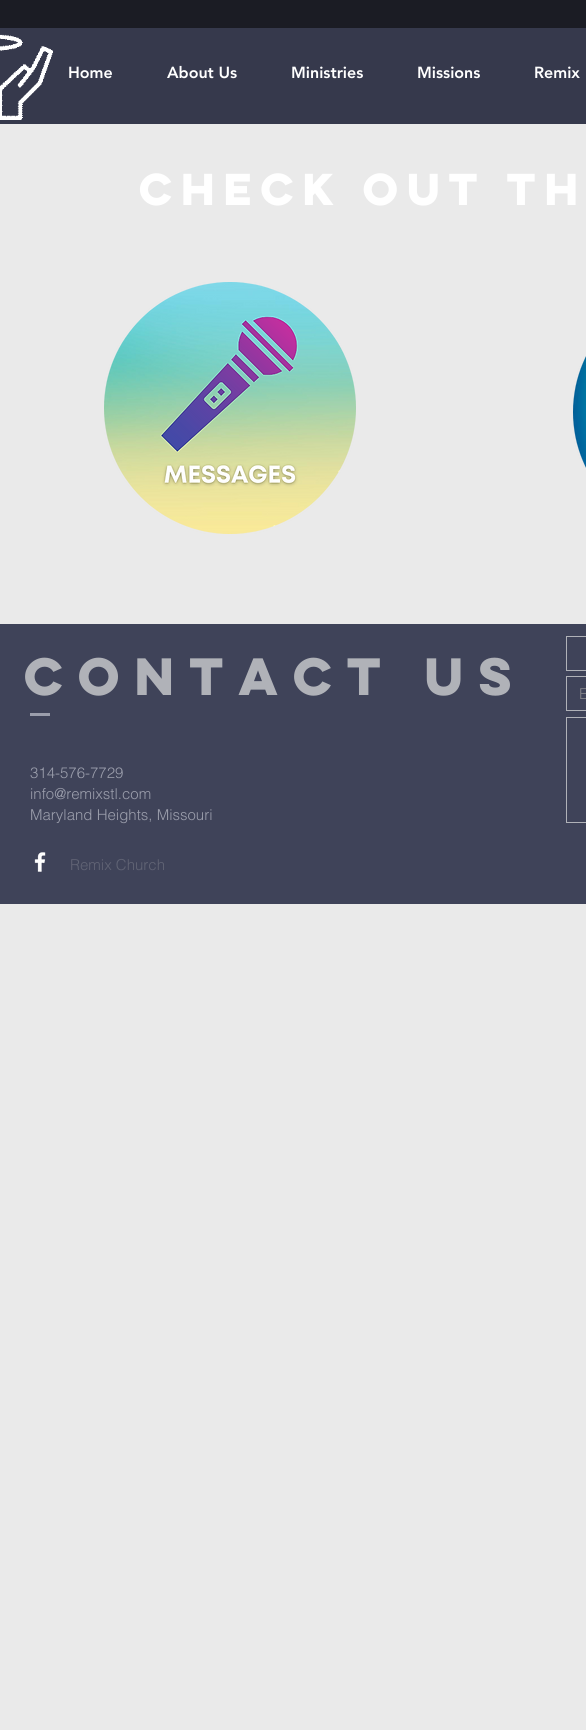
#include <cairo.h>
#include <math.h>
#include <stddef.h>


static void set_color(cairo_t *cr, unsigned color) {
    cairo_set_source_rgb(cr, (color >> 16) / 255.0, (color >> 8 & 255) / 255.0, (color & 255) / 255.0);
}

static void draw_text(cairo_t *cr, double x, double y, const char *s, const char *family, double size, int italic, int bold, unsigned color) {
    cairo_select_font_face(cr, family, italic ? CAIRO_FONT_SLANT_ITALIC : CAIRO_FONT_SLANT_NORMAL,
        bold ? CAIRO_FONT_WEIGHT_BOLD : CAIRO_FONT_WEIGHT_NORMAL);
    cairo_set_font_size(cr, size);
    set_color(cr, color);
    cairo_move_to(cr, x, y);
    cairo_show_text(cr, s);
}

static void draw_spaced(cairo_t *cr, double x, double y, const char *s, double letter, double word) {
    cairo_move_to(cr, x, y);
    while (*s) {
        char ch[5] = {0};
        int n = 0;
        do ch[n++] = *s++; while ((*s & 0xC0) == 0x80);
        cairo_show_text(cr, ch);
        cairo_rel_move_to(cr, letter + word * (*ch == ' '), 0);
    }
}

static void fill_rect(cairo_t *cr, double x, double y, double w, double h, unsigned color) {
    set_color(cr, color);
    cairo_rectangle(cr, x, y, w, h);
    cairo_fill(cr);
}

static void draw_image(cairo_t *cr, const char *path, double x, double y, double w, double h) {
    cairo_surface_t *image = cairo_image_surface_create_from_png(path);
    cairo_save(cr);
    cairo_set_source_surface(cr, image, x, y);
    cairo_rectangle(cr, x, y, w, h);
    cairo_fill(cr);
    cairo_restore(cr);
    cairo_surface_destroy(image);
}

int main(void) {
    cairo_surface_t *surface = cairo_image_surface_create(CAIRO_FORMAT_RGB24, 586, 1730);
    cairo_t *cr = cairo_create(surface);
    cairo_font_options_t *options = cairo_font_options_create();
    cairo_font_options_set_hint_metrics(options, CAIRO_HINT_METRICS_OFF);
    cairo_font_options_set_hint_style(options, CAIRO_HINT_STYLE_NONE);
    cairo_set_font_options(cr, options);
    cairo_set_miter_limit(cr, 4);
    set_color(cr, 0xEAEAEA);
    cairo_paint(cr);
    fill_rect(cr, 0, 0, 586, 28, 0x1B1C24);
    fill_rect(cr, 0, 28, 586, 96, 0x36394C);
    draw_image(cr, "assets/img1.png", 0, 34, 53, 86);
    draw_text(cr, 68, 78, "Home", "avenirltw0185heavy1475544 Black", 16, 0, 0, 0xFFFFFF);
    draw_text(cr, 167, 78, "About Us", "avenirltw0185heavy1475544 Black", 16, 0, 0, 0xFFFFFF);
    draw_text(cr, 291, 78, "Ministries", "avenirltw0185heavy1475544 Black", 16, 0, 0, 0xFFFFFF);
    draw_text(cr, 417, 78, "Missions", "avenirltw0185heavy1475544 Black", 16, 0, 0, 0xFFFFFF);
    draw_text(cr, 534, 78, "Remix", "avenirltw0185heavy1475544 Black", 16, 0, 0, 0xFFFFFF);
    draw_text(cr, 139, 205, "Check out th", "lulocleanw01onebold", 40, 0, 1, 0xFFFFFF);
    draw_image(cr, "assets/img2.png", 104, 282, 252, 252);
    draw_image(cr, "assets/img3.png", 573, 356, 13, 112);
    fill_rect(cr, 0, 624, 586, 280, 0x3F4359);
    cairo_set_font_size(cr, 47);
    set_color(cr, 0xB0B2B8);
    draw_spaced(cr, 24, 695, "Contact us", 4.75, 0);
    cairo_rectangle(cr, 566.5, 636.5, 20, 34);
    cairo_set_line_width(cr, 1);
    cairo_stroke(cr);
    cairo_rectangle(cr, 566.5, 676.5, 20, 34);
    cairo_stroke(cr);
    draw_text(cr, 579, 699, "E", "helvetica Light", 15, 0, 0, 0x84858A);
    cairo_rectangle(cr, 566.5, 717.5, 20, 105);
    set_color(cr, 0xB0B2B8);
    cairo_stroke(cr);
    fill_rect(cr, 30, 713, 20, 3, 0x9B9EAC);
    draw_text(cr, 30, 778, "314-576-7729", "helvetica Light", 15, 0, 0, 0x9B9EAC);
    draw_text(cr, 30, 799, "info@remixstl.com", "helvetica Light", 15, 0, 0, 0x9B9EAC);
    draw_text(cr, 30, 820, "Maryland Heights, Missouri", "helvetica Light", 15, 0, 0, 0x9B9EAC);
    draw_image(cr, "assets/img4.png", 34, 852, 12, 20);
    draw_text(cr, 70, 870, "Remix Church", "helvetica Light", 15, 0, 0, 0x616475);
    cairo_surface_write_to_png(surface, "output.png");
    cairo_font_options_destroy(options);
    cairo_destroy(cr);
    cairo_surface_destroy(surface);
    return 0;
}
